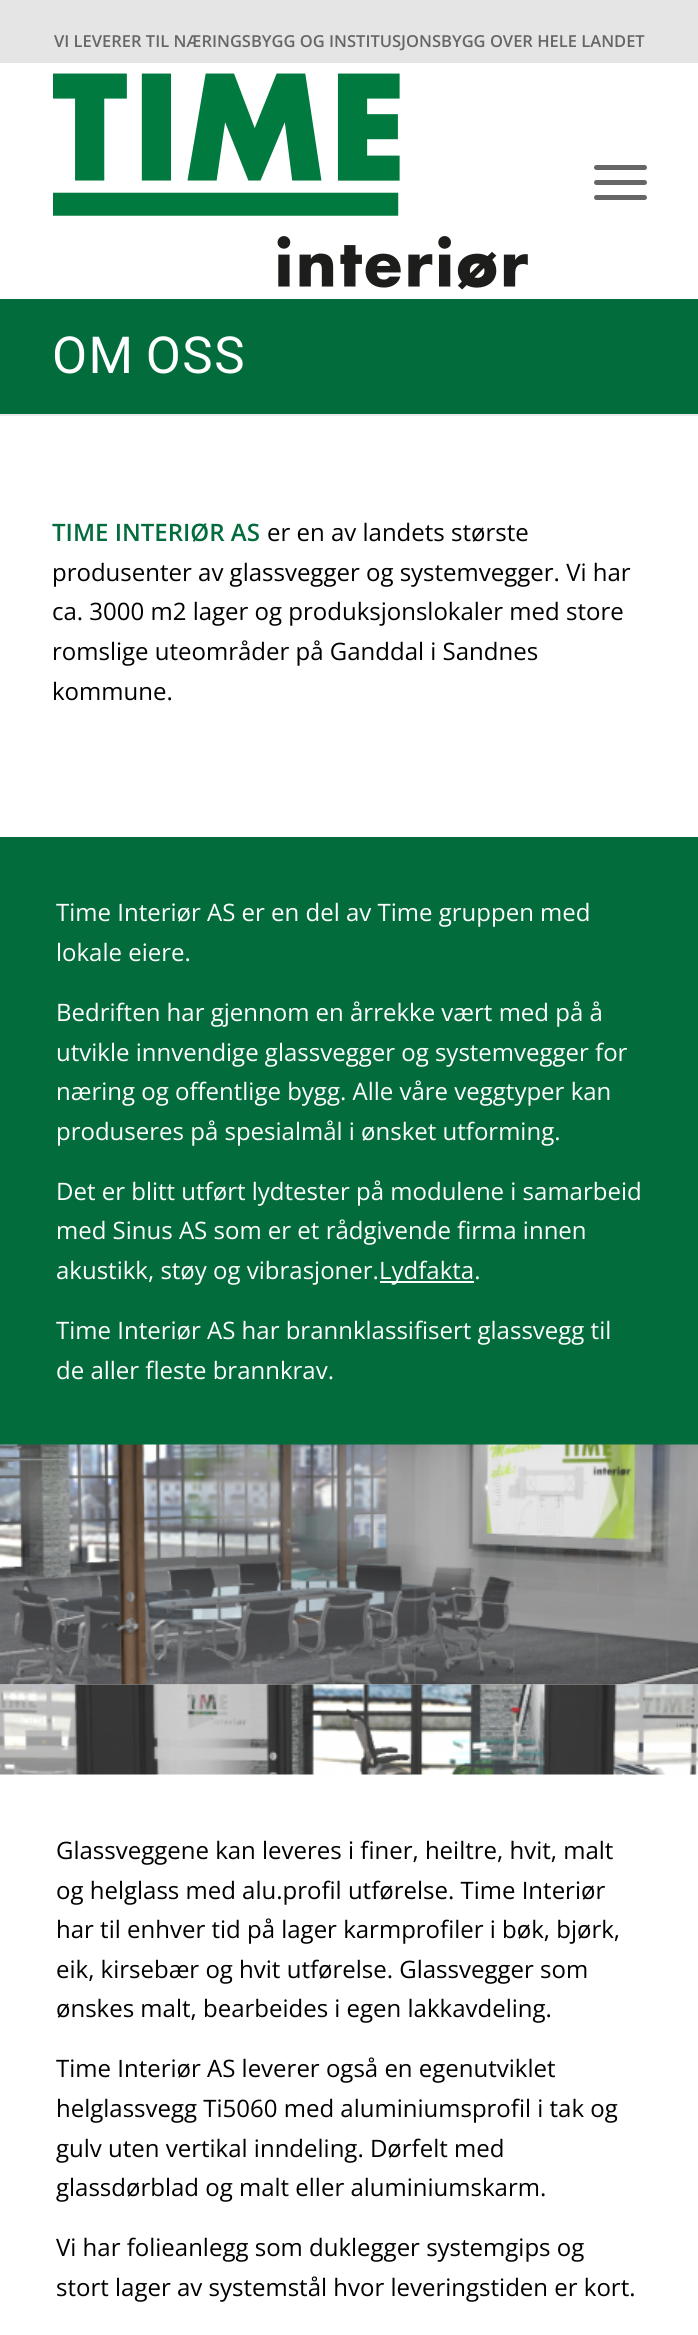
#include <cairo.h>
#include <math.h>
#include <stddef.h>


static void set_color(cairo_t *cr, unsigned color) {
    cairo_set_source_rgb(cr, (color >> 16) / 255.0, (color >> 8 & 255) / 255.0, (color & 255) / 255.0);
}

static void draw_text(cairo_t *cr, double x, double y, const char *s, const char *family, double size, int italic, int bold, unsigned color) {
    cairo_select_font_face(cr, family, italic ? CAIRO_FONT_SLANT_ITALIC : CAIRO_FONT_SLANT_NORMAL,
        bold ? CAIRO_FONT_WEIGHT_BOLD : CAIRO_FONT_WEIGHT_NORMAL);
    cairo_set_font_size(cr, size);
    set_color(cr, color);
    cairo_move_to(cr, x, y);
    cairo_show_text(cr, s);
}

static void draw_spaced(cairo_t *cr, double x, double y, const char *s, double letter, double word) {
    cairo_move_to(cr, x, y);
    while (*s) {
        char ch[5] = {0};
        int n = 0;
        do ch[n++] = *s++; while ((*s & 0xC0) == 0x80);
        cairo_show_text(cr, ch);
        cairo_rel_move_to(cr, letter + word * (*ch == ' '), 0);
    }
}

static void fill_rect(cairo_t *cr, double x, double y, double w, double h, unsigned color) {
    set_color(cr, color);
    cairo_rectangle(cr, x, y, w, h);
    cairo_fill(cr);
}

static void rounded_rect(cairo_t *cr, double x, double y, double w, double h, double r) {
    cairo_new_sub_path(cr);
    cairo_arc(cr, x + w - r, y + h - r, r, 0, M_PI / 2);
    cairo_arc(cr, x + r, y + h - r, r, M_PI / 2, M_PI);
    cairo_arc(cr, x + r, y + r, r, M_PI, 1.5 * M_PI);
    cairo_arc(cr, x + w - r, y + r, r, 1.5 * M_PI, 2 * M_PI);
    cairo_close_path(cr);
}

static void draw_image(cairo_t *cr, const char *path, double x, double y, double w, double h) {
    cairo_surface_t *image = cairo_image_surface_create_from_png(path);
    cairo_save(cr);
    cairo_set_source_surface(cr, image, x, y);
    cairo_rectangle(cr, x, y, w, h);
    cairo_fill(cr);
    cairo_restore(cr);
    cairo_surface_destroy(image);
}

int main(void) {
    cairo_surface_t *surface = cairo_image_surface_create(CAIRO_FORMAT_RGB24, 698, 2335);
    cairo_t *cr = cairo_create(surface);
    cairo_font_options_t *options = cairo_font_options_create();
    cairo_font_options_set_hint_metrics(options, CAIRO_HINT_METRICS_OFF);
    cairo_font_options_set_hint_style(options, CAIRO_HINT_STYLE_NONE);
    cairo_set_font_options(cr, options);
    cairo_set_miter_limit(cr, 4);
    set_color(cr, 0xFFFFFF);
    cairo_paint(cr);
    fill_rect(cr, 0, 0, 698, 63, 0xE5E5E5);
    draw_text(cr, 54, 47, "VI LEVERER TIL NÆRINGSBYGG OG INSTITUSJONSBYGG OVER HELE LANDET", "Open Sans SemiBold", 16.5, 0, 0, 0x666666);
    draw_image(cr, "assets/img1.png", 53, 73, 475, 217);
    rounded_rect(cr, 594, 180, 53, 5, 2.5);
    cairo_fill(cr);
    rounded_rect(cr, 594, 165, 53, 5, 2.5);
    cairo_fill(cr);
    rounded_rect(cr, 594, 195, 53, 5, 2.5);
    cairo_fill(cr);
    fill_rect(cr, 0, 299, 698, 115, 0x026C3D);
    cairo_select_font_face(cr, "Roboto", CAIRO_FONT_SLANT_NORMAL, CAIRO_FONT_WEIGHT_NORMAL);
    cairo_set_font_size(cr, 51);
    set_color(cr, 0xFFFFFF);
    draw_spaced(cr, 52, 373, "OM OSS", 1.5, -3);
    fill_rect(cr, 0, 414, 698, 2, 0xEBEBEB);
    draw_text(cr, 52, 541, "TIME INTERIØR AS", "Open Sans SemiBold", 24, 0, 0, 0x026C3C);
    draw_text(cr, 267, 541, "er en av landets største", "Open Sans", 24, 0, 0, 0x000000);
    draw_text(cr, 52, 581, "produsenter av glassvegger og systemvegger. Vi har", "Open Sans", 24, 0, 0, 0x000000);
    draw_text(cr, 52, 620, "ca. 3000 m2 lager og produksjonslokaler med store", "Open Sans", 24, 0, 0, 0x000000);
    draw_text(cr, 52, 660, "romslige uteområder på Ganddal i Sandnes", "Open Sans", 24, 0, 0, 0x000000);
    draw_text(cr, 52, 700, "kommune.", "Open Sans", 24, 0, 0, 0x000000);
    fill_rect(cr, 0, 837, 698, 608, 0x026C3C);
    draw_text(cr, 56, 921, "Time Interiør AS er en del av Time gruppen med", "Open Sans", 24, 0, 0, 0xFFFFFF);
    draw_text(cr, 56, 961, "lokale eiere.", "Open Sans", 24, 0, 0, 0xFFFFFF);
    draw_text(cr, 56, 1021, "Bedriften har gjennom en årrekke vært med på å", "Open Sans", 24, 0, 0, 0xFFFFFF);
    draw_text(cr, 56, 1061, "utvikle innvendige glassvegger og systemvegger for", "Open Sans", 24, 0, 0, 0xFFFFFF);
    draw_text(cr, 56, 1100, "næring og offentlige bygg. Alle våre veggtyper kan", "Open Sans", 24, 0, 0, 0xFFFFFF);
    draw_text(cr, 56, 1140, "produseres på spesialmål i ønsket utforming.", "Open Sans", 24, 0, 0, 0xFFFFFF);
    draw_text(cr, 56, 1200, "Det er blitt utført lydtester på modulene i samarbeid", "Open Sans", 24, 0, 0, 0xFFFFFF);
    draw_text(cr, 56, 1239, "med Sinus AS som er et rådgivende firma innen", "Open Sans", 24, 0, 0, 0xFFFFFF);
    draw_text(cr, 56, 1279, "akustikk, støy og vibrasjoner.", "Open Sans", 24, 0, 0, 0xFFFFFF);
    fill_rect(cr, 380, 1281, 94, 2, 0xFFFFFF);
    draw_text(cr, 379, 1279, "Lydfakta.", "Open Sans", 24, 0, 0, 0xFFFFFF);
    draw_text(cr, 56, 1339, "Time Interiør AS har brannklassifisert glassvegg til", "Open Sans", 24, 0, 0, 0xFFFFFF);
    draw_text(cr, 56, 1379, "de aller fleste brannkrav.", "Open Sans", 24, 0, 0, 0xFFFFFF);
    draw_image(cr, "assets/img2.png", 0, 1444, 698, 241);
    draw_image(cr, "assets/img3.png", 0, 1684, 698, 91);
    draw_text(cr, 56, 1859, "Glassveggene kan leveres i finer, heiltre, hvit, malt", "Open Sans", 24, 0, 0, 0x000000);
    draw_text(cr, 56, 1899, "og helglass med alu.profil utførelse. Time Interiør", "Open Sans", 24, 0, 0, 0x000000);
    draw_text(cr, 56, 1938, "har til enhver tid på lager karmprofiler i bøk, bjørk,", "Open Sans", 24, 0, 0, 0x000000);
    draw_text(cr, 56, 1978, "eik, kirsebær og hvit utførelse. Glassvegger som", "Open Sans", 24, 0, 0, 0x000000);
    draw_text(cr, 56, 2017, "ønskes malt, bearbeides i egen lakkavdeling.", "Open Sans", 24, 0, 0, 0x000000);
    draw_text(cr, 56, 2077, "Time Interiør AS leverer også en egenutviklet", "Open Sans", 24, 0, 0, 0x000000);
    draw_text(cr, 56, 2117, "helglassvegg Ti5060 med aluminiumsprofil i tak og", "Open Sans", 24, 0, 0, 0x000000);
    draw_text(cr, 56, 2157, "gulv uten vertikal inndeling. Dørfelt med", "Open Sans", 24, 0, 0, 0x000000);
    draw_text(cr, 56, 2196, "glassdørblad og malt eller aluminiumskarm.", "Open Sans", 24, 0, 0, 0x000000);
    draw_text(cr, 56, 2256, "Vi har folieanlegg som duklegger systemgips og", "Open Sans", 24, 0, 0, 0x000000);
    draw_text(cr, 56, 2296, "stort lager av systemstål hvor leveringstiden er kort.", "Open Sans", 24, 0, 0, 0x000000);
    cairo_surface_write_to_png(surface, "output.png");
    cairo_font_options_destroy(options);
    cairo_destroy(cr);
    cairo_surface_destroy(surface);
    return 0;
}
